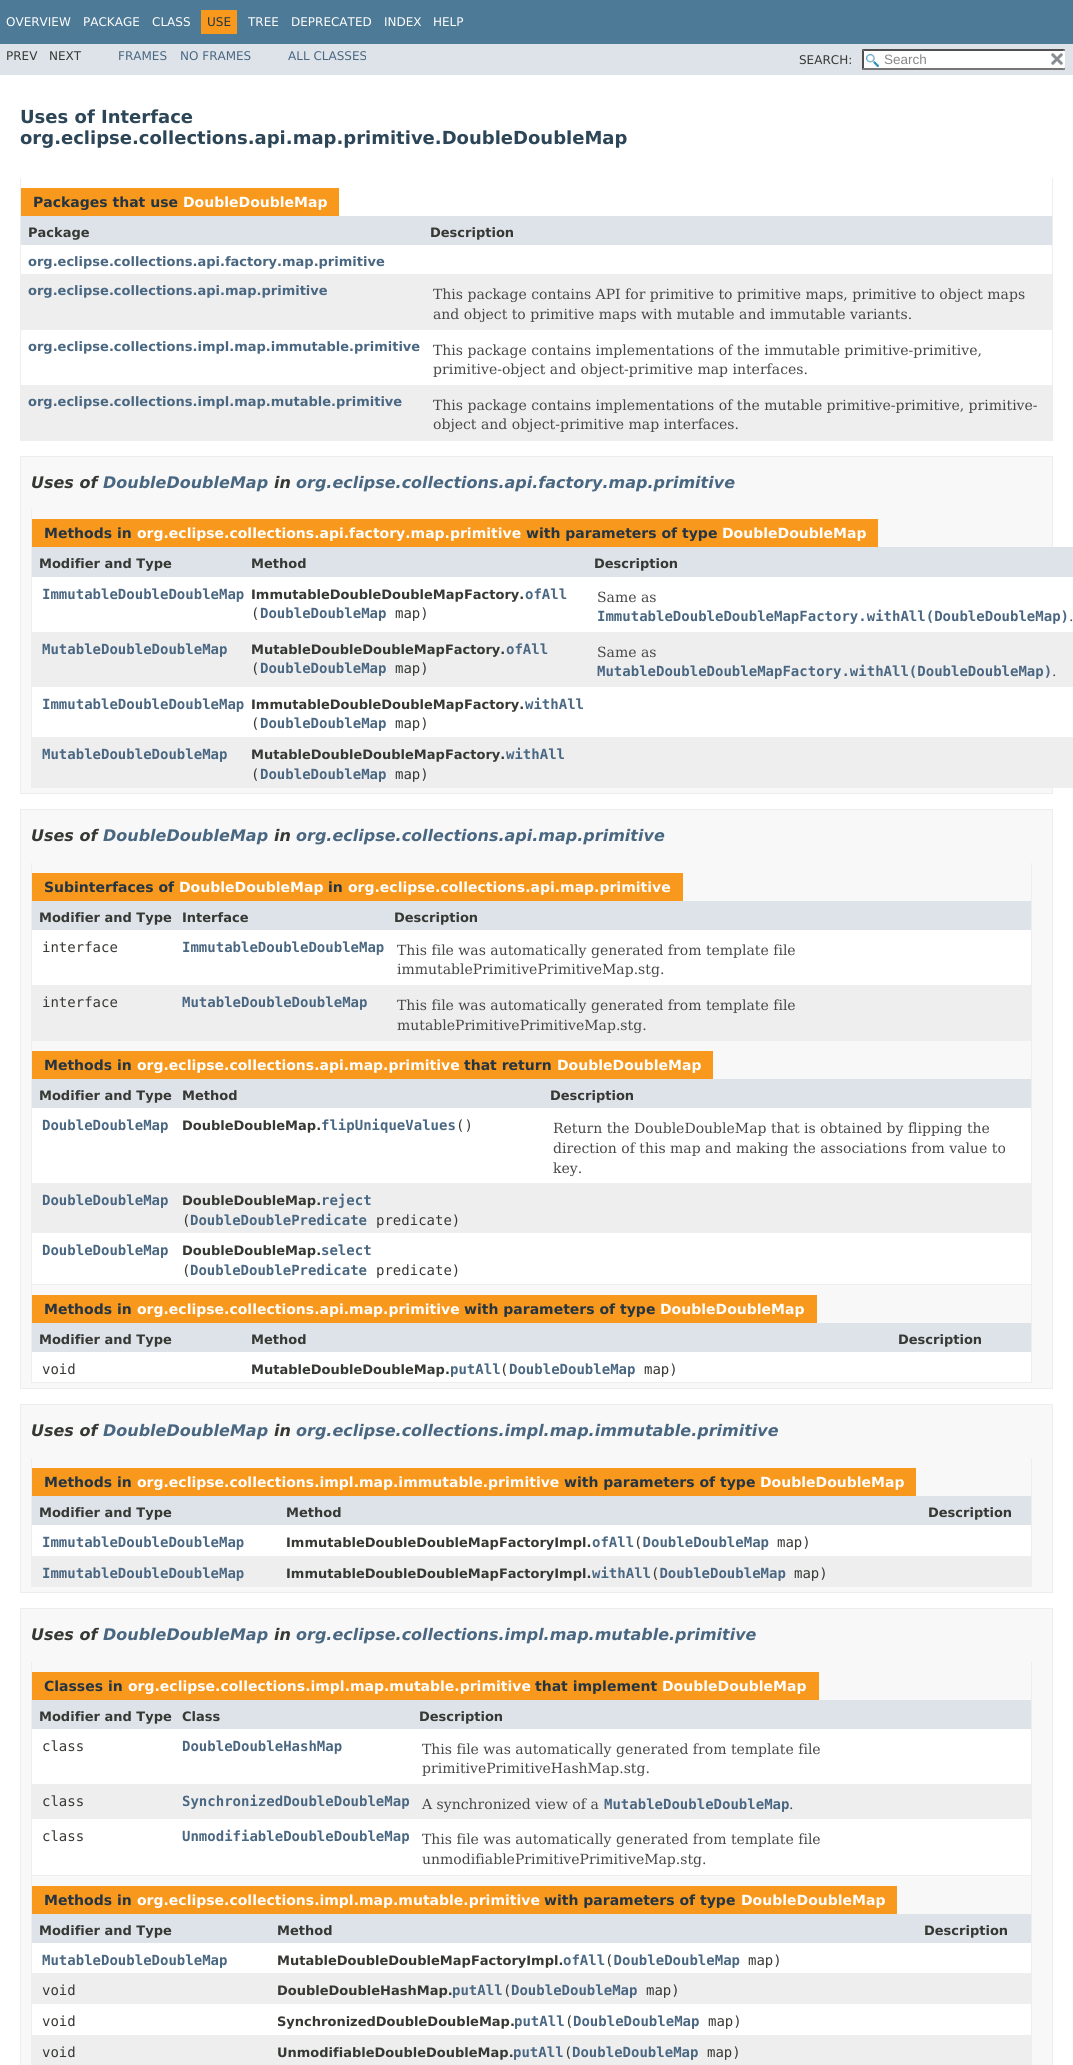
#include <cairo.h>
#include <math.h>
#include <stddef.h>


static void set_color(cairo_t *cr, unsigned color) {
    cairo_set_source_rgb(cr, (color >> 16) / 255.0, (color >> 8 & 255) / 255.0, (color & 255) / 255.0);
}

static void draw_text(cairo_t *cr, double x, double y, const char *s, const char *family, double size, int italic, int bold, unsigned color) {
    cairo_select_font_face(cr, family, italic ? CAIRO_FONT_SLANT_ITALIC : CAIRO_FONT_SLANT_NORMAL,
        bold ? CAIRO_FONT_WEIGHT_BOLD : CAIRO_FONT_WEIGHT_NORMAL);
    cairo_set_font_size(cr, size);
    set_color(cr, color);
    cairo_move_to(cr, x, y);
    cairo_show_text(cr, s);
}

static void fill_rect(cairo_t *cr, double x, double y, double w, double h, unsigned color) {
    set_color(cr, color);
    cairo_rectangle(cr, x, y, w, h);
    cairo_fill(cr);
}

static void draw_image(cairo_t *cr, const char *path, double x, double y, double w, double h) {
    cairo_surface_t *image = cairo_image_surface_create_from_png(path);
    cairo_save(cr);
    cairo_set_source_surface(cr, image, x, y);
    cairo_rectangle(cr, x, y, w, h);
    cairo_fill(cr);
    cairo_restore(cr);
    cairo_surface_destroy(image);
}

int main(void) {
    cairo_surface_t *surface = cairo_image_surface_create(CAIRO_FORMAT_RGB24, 1073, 2065);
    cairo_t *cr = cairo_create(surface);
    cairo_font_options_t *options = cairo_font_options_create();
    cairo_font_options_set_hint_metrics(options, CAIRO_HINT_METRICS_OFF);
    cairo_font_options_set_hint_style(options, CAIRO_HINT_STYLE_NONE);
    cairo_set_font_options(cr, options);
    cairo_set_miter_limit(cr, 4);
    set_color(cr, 0xFFFFFF);
    cairo_paint(cr);
    fill_rect(cr, 0, 0, 1073, 44, 0x4D7A97);
    draw_text(cr, 6, 26, "OVERVIEW", "DejaVu Sans", 12, 0, 0, 0xFFFFFF);
    draw_text(cr, 83, 26, "PACKAGE", "DejaVu Sans", 12, 0, 0, 0xFFFFFF);
    draw_text(cr, 152, 26, "CLASS", "DejaVu Sans", 12, 0, 0, 0xFFFFFF);
    fill_rect(cr, 201, 10, 36, 24, 0xF8981D);
    draw_text(cr, 207, 26, "USE", "DejaVu Sans", 12, 0, 0, 0x253441);
    draw_text(cr, 248, 26, "TREE", "DejaVu Sans", 12, 0, 0, 0xFFFFFF);
    draw_text(cr, 291, 26, "DEPRECATED", "DejaVu Sans", 12, 0, 0, 0xFFFFFF);
    draw_text(cr, 384, 26, "INDEX", "DejaVu Sans", 12, 0, 0, 0xFFFFFF);
    draw_text(cr, 433, 26, "HELP", "DejaVu Sans", 12, 0, 0, 0xFFFFFF);
    fill_rect(cr, 0, 44, 1073, 31, 0xDEE3E9);
    draw_text(cr, 6, 60, "PREV", "DejaVu Sans", 12, 0, 0, 0x353833);
    draw_text(cr, 49, 60, "NEXT", "DejaVu Sans", 12, 0, 0, 0x353833);
    draw_text(cr, 118, 60, "FRAMES", "DejaVu Sans", 12, 0, 0, 0x4A6782);
    draw_text(cr, 180, 60, "NO FRAMES", "DejaVu Sans", 12, 0, 0, 0x4A6782);
    draw_text(cr, 288, 60, "ALL CLASSES", "DejaVu Sans", 12, 0, 0, 0x4A6782);
    draw_text(cr, 799, 64, "SEARCH:", "DejaVu Sans", 12, 0, 0, 0x353833);
    fill_rect(cr, 862, 49, 203, 21, 0xFFFFFF);
    draw_image(cr, "assets/img1.png", 866, 54, 13, 13);
    set_color(cr, 0x4F4F4F);
    cairo_new_path(cr);
    cairo_move_to(cr, 862, 49);
    cairo_line_to(cr, 1065, 49);
    cairo_line_to(cr, 1063, 51);
    cairo_line_to(cr, 864, 51);
    cairo_close_path(cr);
    cairo_fill(cr);
    set_color(cr, 0x767676);
    cairo_new_path(cr);
    cairo_move_to(cr, 1065, 49);
    cairo_line_to(cr, 1065, 70);
    cairo_line_to(cr, 1063, 68);
    cairo_line_to(cr, 1063, 51);
    cairo_close_path(cr);
    cairo_fill(cr);
    cairo_new_path(cr);
    cairo_move_to(cr, 1065, 70);
    cairo_line_to(cr, 862, 70);
    cairo_line_to(cr, 864, 68);
    cairo_line_to(cr, 1063, 68);
    cairo_close_path(cr);
    cairo_fill(cr);
    set_color(cr, 0x4F4F4F);
    cairo_new_path(cr);
    cairo_move_to(cr, 862, 70);
    cairo_line_to(cr, 862, 49);
    cairo_line_to(cr, 864, 51);
    cairo_line_to(cr, 864, 68);
    cairo_close_path(cr);
    cairo_fill(cr);
    draw_text(cr, 884, 64, "Search", "Liberation Sans", 13.5, 0, 0, 0x888888);
    fill_rect(cr, 1063, 51, 2, 17, 0xFFFFFF);
    draw_image(cr, "assets/img2.png", 1051, 53, 12, 12);
    draw_text(cr, 20, 123, "Uses of Interface", "DejaVu Sans", 18, 0, 1, 0x2C4557);
    draw_text(cr, 20, 144, "org.eclipse.collections.api.map.primitive.DoubleDoubleMap", "DejaVu Sans", 18, 0, 1, 0x2C4557);
    fill_rect(cr, 1052, 178, 1, 263, 0xEEEEEE);
    fill_rect(cr, 20, 440, 1033, 1, 0xEEEEEE);
    fill_rect(cr, 20, 178, 1, 263, 0xEEEEEE);
    fill_rect(cr, 21, 188, 318, 28, 0xF8981D);
    draw_text(cr, 33, 207, "Packages that use", "DejaVu Sans", 14, 0, 1, 0x253441);
    draw_text(cr, 183, 207, "DoubleDoubleMap", "DejaVu Sans", 14, 0, 1, 0xFFFFFF);
    fill_rect(cr, 21, 216, 1031, 29, 0xDEE3E9);
    draw_text(cr, 28, 237, "Package", "DejaVu Sans", 13, 0, 1, 0x353833);
    draw_text(cr, 430, 237, "Description", "DejaVu Sans", 13, 0, 1, 0x353833);
    draw_text(cr, 28, 266, "org.eclipse.collections.api.factory.map.primitive", "DejaVu Sans", 13, 0, 1, 0x4A6782);
    fill_rect(cr, 21, 274, 1031, 56, 0xEEEEEF);
    draw_text(cr, 28, 295, "org.eclipse.collections.api.map.primitive", "DejaVu Sans", 13, 0, 1, 0x4A6782);
    draw_text(cr, 433, 299, "This package contains API for primitive to primitive maps, primitive to object maps", "DejaVu Serif", 14, 0, 0, 0x474747);
    draw_text(cr, 433, 319, "and object to primitive maps with mutable and immutable variants.", "DejaVu Serif", 14, 0, 0, 0x474747);
    draw_text(cr, 28, 351, "org.eclipse.collections.impl.map.immutable.primitive", "DejaVu Sans", 13, 0, 1, 0x4A6782);
    draw_text(cr, 433, 355, "This package contains implementations of the immutable primitive-primitive,", "DejaVu Serif", 14, 0, 0, 0x474747);
    draw_text(cr, 433, 374, "primitive-object and object-primitive map interfaces.", "DejaVu Serif", 14, 0, 0, 0x474747);
    fill_rect(cr, 21, 385, 1031, 55, 0xEEEEEF);
    draw_text(cr, 28, 406, "org.eclipse.collections.impl.map.mutable.primitive", "DejaVu Sans", 13, 0, 1, 0x4A6782);
    draw_text(cr, 433, 410, "This package contains implementations of the mutable primitive-primitive, primitive-", "DejaVu Serif", 14, 0, 0, 0x474747);
    draw_text(cr, 433, 429, "object and object-primitive map interfaces.", "DejaVu Serif", 14, 0, 0, 0x474747);
    set_color(cr, 0xF8F8F8);
    cairo_rectangle(cr, 20.5, 456.5, 1032, 337);
    cairo_fill_preserve(cr);
    set_color(cr, 0xEDEDED);
    cairo_set_line_width(cr, 1);
    cairo_stroke(cr);
    draw_text(cr, 31, 488, "Uses of", "DejaVu Sans", 16, 1, 1, 0x353833);
    draw_text(cr, 103, 488, "DoubleDoubleMap", "DejaVu Sans", 16, 1, 1, 0x4A6782);
    draw_text(cr, 274, 488, "in", "DejaVu Sans", 16, 1, 1, 0x353833);
    draw_text(cr, 296, 488, "org.eclipse.collections.api.factory.map.primitive", "DejaVu Sans", 16, 1, 1, 0x4A6782);
    fill_rect(cr, 31, 787, 1042, 1, 0xEEEEEE);
    fill_rect(cr, 31, 509, 1, 279, 0xEEEEEE);
    fill_rect(cr, 32, 519, 846, 28, 0xF8981D);
    draw_text(cr, 44, 538, "Methods in", "DejaVu Sans", 14, 0, 1, 0x253441);
    draw_text(cr, 137, 538, "org.eclipse.collections.api.factory.map.primitive", "DejaVu Sans", 14, 0, 1, 0xFFFFFF);
    draw_text(cr, 526, 538, "with parameters of type", "DejaVu Sans", 14, 0, 1, 0x253441);
    draw_text(cr, 722, 538, "DoubleDoubleMap", "DejaVu Sans", 14, 0, 1, 0xFFFFFF);
    fill_rect(cr, 32, 547, 1041, 30, 0xDEE3E9);
    draw_text(cr, 39, 568, "Modifier and Type", "DejaVu Sans", 13, 0, 1, 0x353833);
    draw_text(cr, 251, 568, "Method", "DejaVu Sans", 13, 0, 1, 0x353833);
    draw_text(cr, 594, 568, "Description", "DejaVu Sans", 13, 0, 1, 0x353833);
    fill_rect(cr, 32, 577, 1021, 55, 0xFFFFFF);
    draw_text(cr, 42, 599, "ImmutableDoubleDoubleMap", "DejaVu Sans Mono", 14, 0, 1, 0x4A6782);
    draw_text(cr, 251, 599, "ImmutableDoubleDoubleMapFactory.", "DejaVu Sans", 13, 0, 1, 0x353833);
    draw_text(cr, 525, 599, "ofAll", "DejaVu Sans Mono", 14, 0, 1, 0x4A6782);
    draw_text(cr, 251, 618, "(", "DejaVu Sans Mono", 14, 0, 0, 0x353833);
    draw_text(cr, 260, 618, "DoubleDoubleMap", "DejaVu Sans Mono", 14, 0, 1, 0x4A6782);
    draw_text(cr, 395, 618, "map)", "DejaVu Sans Mono", 14, 0, 0, 0x353833);
    draw_text(cr, 597, 602, "Same as", "DejaVu Serif", 14, 0, 0, 0x474747);
    draw_text(cr, 597, 621, "ImmutableDoubleDoubleMapFactory.withAll(DoubleDoubleMap)", "DejaVu Sans Mono", 14, 0, 1, 0x4A6782);
    draw_text(cr, 1069, 621, ".", "DejaVu Serif", 14, 0, 0, 0x474747);
    fill_rect(cr, 32, 632, 1041, 55, 0xEEEEEF);
    draw_text(cr, 42, 654, "MutableDoubleDoubleMap", "DejaVu Sans Mono", 14, 0, 1, 0x4A6782);
    draw_text(cr, 251, 654, "MutableDoubleDoubleMapFactory.", "DejaVu Sans", 13, 0, 1, 0x353833);
    draw_text(cr, 506, 654, "ofAll", "DejaVu Sans Mono", 14, 0, 1, 0x4A6782);
    draw_text(cr, 251, 673, "(", "DejaVu Sans Mono", 14, 0, 0, 0x353833);
    draw_text(cr, 260, 673, "DoubleDoubleMap", "DejaVu Sans Mono", 14, 0, 1, 0x4A6782);
    draw_text(cr, 395, 673, "map)", "DejaVu Sans Mono", 14, 0, 0, 0x353833);
    draw_text(cr, 597, 657, "Same as", "DejaVu Serif", 14, 0, 0, 0x474747);
    draw_text(cr, 597, 676, "MutableDoubleDoubleMapFactory.withAll(DoubleDoubleMap)", "DejaVu Sans Mono", 14, 0, 1, 0x4A6782);
    draw_text(cr, 1052, 676, ".", "DejaVu Serif", 14, 0, 0, 0x474747);
    fill_rect(cr, 32, 687, 1021, 50, 0xFFFFFF);
    draw_text(cr, 42, 709, "ImmutableDoubleDoubleMap", "DejaVu Sans Mono", 14, 0, 1, 0x4A6782);
    draw_text(cr, 251, 709, "ImmutableDoubleDoubleMapFactory.", "DejaVu Sans", 13, 0, 1, 0x353833);
    draw_text(cr, 525, 709, "withAll", "DejaVu Sans Mono", 14, 0, 1, 0x4A6782);
    draw_text(cr, 251, 728, "(", "DejaVu Sans Mono", 14, 0, 0, 0x353833);
    draw_text(cr, 260, 728, "DoubleDoubleMap", "DejaVu Sans Mono", 14, 0, 1, 0x4A6782);
    draw_text(cr, 395, 728, "map)", "DejaVu Sans Mono", 14, 0, 0, 0x353833);
    fill_rect(cr, 32, 737, 1041, 50, 0xEEEEEF);
    draw_text(cr, 42, 759, "MutableDoubleDoubleMap", "DejaVu Sans Mono", 14, 0, 1, 0x4A6782);
    draw_text(cr, 251, 759, "MutableDoubleDoubleMapFactory.", "DejaVu Sans", 13, 0, 1, 0x353833);
    draw_text(cr, 506, 759, "withAll", "DejaVu Sans Mono", 14, 0, 1, 0x4A6782);
    draw_text(cr, 251, 779, "(", "DejaVu Sans Mono", 14, 0, 0, 0x353833);
    draw_text(cr, 260, 779, "DoubleDoubleMap", "DejaVu Sans Mono", 14, 0, 1, 0x4A6782);
    draw_text(cr, 395, 779, "map)", "DejaVu Sans Mono", 14, 0, 0, 0x353833);
    set_color(cr, 0xF8F8F8);
    cairo_rectangle(cr, 20.5, 809.5, 1032, 579);
    cairo_fill_preserve(cr);
    set_color(cr, 0xEDEDED);
    cairo_stroke(cr);
    draw_text(cr, 31, 841, "Uses of", "DejaVu Sans", 16, 1, 1, 0x353833);
    draw_text(cr, 103, 841, "DoubleDoubleMap", "DejaVu Sans", 16, 1, 1, 0x4A6782);
    draw_text(cr, 274, 841, "in", "DejaVu Sans", 16, 1, 1, 0x353833);
    draw_text(cr, 296, 841, "org.eclipse.collections.api.map.primitive", "DejaVu Sans", 16, 1, 1, 0x4A6782);
    fill_rect(cr, 1031, 863, 1, 520, 0xEEEEEE);
    fill_rect(cr, 31, 1040, 1001, 1, 0xEEEEEE);
    fill_rect(cr, 31, 863, 1, 178, 0xEEEEEE);
    fill_rect(cr, 32, 873, 651, 28, 0xF8981D);
    draw_text(cr, 44, 892, "Subinterfaces of", "DejaVu Sans", 14, 0, 1, 0x253441);
    draw_text(cr, 179, 892, "DoubleDoubleMap", "DejaVu Sans", 14, 0, 1, 0xFFFFFF);
    draw_text(cr, 328, 892, "in", "DejaVu Sans", 14, 0, 1, 0x253441);
    draw_text(cr, 348, 892, "org.eclipse.collections.api.map.primitive", "DejaVu Sans", 14, 0, 1, 0xFFFFFF);
    fill_rect(cr, 32, 901, 999, 29, 0xDEE3E9);
    draw_text(cr, 39, 922, "Modifier and Type", "DejaVu Sans", 13, 0, 1, 0x353833);
    draw_text(cr, 182, 922, "Interface", "DejaVu Sans", 13, 0, 1, 0x353833);
    draw_text(cr, 394, 922, "Description", "DejaVu Sans", 13, 0, 1, 0x353833);
    fill_rect(cr, 32, 930, 999, 55, 0xFFFFFF);
    draw_text(cr, 42, 952, "interface", "DejaVu Sans Mono", 14, 0, 0, 0x353833);
    draw_text(cr, 182, 952, "ImmutableDoubleDoubleMap", "DejaVu Sans Mono", 14, 0, 1, 0x4A6782);
    draw_text(cr, 397, 955, "This file was automatically generated from template file", "DejaVu Serif", 14, 0, 0, 0x474747);
    draw_text(cr, 397, 974, "immutablePrimitivePrimitiveMap.stg.", "DejaVu Serif", 14, 0, 0, 0x474747);
    fill_rect(cr, 32, 985, 999, 55, 0xEEEEEF);
    draw_text(cr, 42, 1007, "interface", "DejaVu Sans Mono", 14, 0, 0, 0x353833);
    draw_text(cr, 182, 1007, "MutableDoubleDoubleMap", "DejaVu Sans Mono", 14, 0, 1, 0x4A6782);
    draw_text(cr, 397, 1010, "This file was automatically generated from template file", "DejaVu Serif", 14, 0, 0, 0x474747);
    draw_text(cr, 397, 1030, "mutablePrimitivePrimitiveMap.stg.", "DejaVu Serif", 14, 0, 0, 0x474747);
    fill_rect(cr, 31, 1284, 1001, 1, 0xEEEEEE);
    fill_rect(cr, 31, 1041, 1, 244, 0xEEEEEE);
    fill_rect(cr, 32, 1051, 681, 28, 0xF8981D);
    draw_text(cr, 44, 1070, "Methods in", "DejaVu Sans", 14, 0, 1, 0x253441);
    draw_text(cr, 137, 1070, "org.eclipse.collections.api.map.primitive", "DejaVu Sans", 14, 0, 1, 0xFFFFFF);
    draw_text(cr, 464, 1070, "that return", "DejaVu Sans", 14, 0, 1, 0x253441);
    draw_text(cr, 557, 1070, "DoubleDoubleMap", "DejaVu Sans", 14, 0, 1, 0xFFFFFF);
    fill_rect(cr, 32, 1079, 999, 29, 0xDEE3E9);
    draw_text(cr, 39, 1100, "Modifier and Type", "DejaVu Sans", 13, 0, 1, 0x353833);
    draw_text(cr, 182, 1100, "Method", "DejaVu Sans", 13, 0, 1, 0x353833);
    draw_text(cr, 550, 1100, "Description", "DejaVu Sans", 13, 0, 1, 0x353833);
    fill_rect(cr, 32, 1108, 999, 75, 0xFFFFFF);
    draw_text(cr, 42, 1130, "DoubleDoubleMap", "DejaVu Sans Mono", 14, 0, 1, 0x4A6782);
    draw_text(cr, 182, 1130, "DoubleDoubleMap.", "DejaVu Sans", 13, 0, 1, 0x353833);
    draw_text(cr, 321, 1130, "flipUniqueValues", "DejaVu Sans Mono", 14, 0, 1, 0x4A6782);
    draw_text(cr, 456, 1130, "()", "DejaVu Sans Mono", 14, 0, 0, 0x353833);
    draw_text(cr, 553, 1133, "Return the DoubleDoubleMap that is obtained by flipping the", "DejaVu Serif", 14, 0, 0, 0x474747);
    draw_text(cr, 553, 1153, "direction of this map and making the associations from value to", "DejaVu Serif", 14, 0, 0, 0x474747);
    draw_text(cr, 553, 1173, "key.", "DejaVu Serif", 14, 0, 0, 0x474747);
    fill_rect(cr, 32, 1183, 999, 50, 0xEEEEEF);
    draw_text(cr, 42, 1205, "DoubleDoubleMap", "DejaVu Sans Mono", 14, 0, 1, 0x4A6782);
    draw_text(cr, 182, 1205, "DoubleDoubleMap.", "DejaVu Sans", 13, 0, 1, 0x353833);
    draw_text(cr, 321, 1205, "reject", "DejaVu Sans Mono", 14, 0, 1, 0x4A6782);
    draw_text(cr, 182, 1225, "(", "DejaVu Sans Mono", 14, 0, 0, 0x353833);
    draw_text(cr, 190, 1225, "DoubleDoublePredicate", "DejaVu Sans Mono", 14, 0, 1, 0x4A6782);
    draw_text(cr, 376, 1225, "predicate)", "DejaVu Sans Mono", 14, 0, 0, 0x353833);
    fill_rect(cr, 32, 1233, 999, 51, 0xFFFFFF);
    draw_text(cr, 42, 1255, "DoubleDoubleMap", "DejaVu Sans Mono", 14, 0, 1, 0x4A6782);
    draw_text(cr, 182, 1255, "DoubleDoubleMap.", "DejaVu Sans", 13, 0, 1, 0x353833);
    draw_text(cr, 321, 1255, "select", "DejaVu Sans Mono", 14, 0, 1, 0x4A6782);
    draw_text(cr, 182, 1275, "(", "DejaVu Sans Mono", 14, 0, 0, 0x353833);
    draw_text(cr, 190, 1275, "DoubleDoublePredicate", "DejaVu Sans Mono", 14, 0, 1, 0x4A6782);
    draw_text(cr, 376, 1275, "predicate)", "DejaVu Sans Mono", 14, 0, 0, 0x353833);
    fill_rect(cr, 31, 1382, 1001, 1, 0xEEEEEE);
    fill_rect(cr, 31, 1285, 1, 98, 0xEEEEEE);
    fill_rect(cr, 32, 1295, 785, 28, 0xF8981D);
    draw_text(cr, 44, 1314, "Methods in", "DejaVu Sans", 14, 0, 1, 0x253441);
    draw_text(cr, 137, 1314, "org.eclipse.collections.api.map.primitive", "DejaVu Sans", 14, 0, 1, 0xFFFFFF);
    draw_text(cr, 464, 1314, "with parameters of type", "DejaVu Sans", 14, 0, 1, 0x253441);
    draw_text(cr, 660, 1314, "DoubleDoubleMap", "DejaVu Sans", 14, 0, 1, 0xFFFFFF);
    fill_rect(cr, 32, 1323, 999, 29, 0xDEE3E9);
    draw_text(cr, 39, 1344, "Modifier and Type", "DejaVu Sans", 13, 0, 1, 0x353833);
    draw_text(cr, 251, 1344, "Method", "DejaVu Sans", 13, 0, 1, 0x353833);
    draw_text(cr, 898, 1344, "Description", "DejaVu Sans", 13, 0, 1, 0x353833);
    fill_rect(cr, 32, 1352, 999, 30, 0xFFFFFF);
    draw_text(cr, 42, 1374, "void", "DejaVu Sans Mono", 14, 0, 0, 0x353833);
    draw_text(cr, 450, 1374, "putAll DoubleDoubleMap", "DejaVu Sans Mono", 14, 0, 1, 0x4A6782);
    draw_text(cr, 251, 1374, "MutableDoubleDoubleMap.", "DejaVu Sans", 13, 0, 1, 0x353833);
    draw_text(cr, 500, 1374, "(", "DejaVu Sans Mono", 14, 0, 0, 0x353833);
    draw_text(cr, 644, 1374, "map)", "DejaVu Sans Mono", 14, 0, 0, 0x353833);
    set_color(cr, 0xF8F8F8);
    cairo_rectangle(cr, 20.5, 1404.5, 1032, 188);
    cairo_fill_preserve(cr);
    set_color(cr, 0xEDEDED);
    cairo_stroke(cr);
    draw_text(cr, 31, 1436, "Uses of", "DejaVu Sans", 16, 1, 1, 0x353833);
    draw_text(cr, 103, 1436, "DoubleDoubleMap", "DejaVu Sans", 16, 1, 1, 0x4A6782);
    draw_text(cr, 274, 1436, "in", "DejaVu Sans", 16, 1, 1, 0x353833);
    draw_text(cr, 296, 1436, "org.eclipse.collections.impl.map.immutable.primitive", "DejaVu Sans", 16, 1, 1, 0x4A6782);
    fill_rect(cr, 1031, 1458, 1, 129, 0xEEEEEE);
    fill_rect(cr, 31, 1586, 1001, 1, 0xEEEEEE);
    fill_rect(cr, 31, 1458, 1, 129, 0xEEEEEE);
    fill_rect(cr, 32, 1468, 884, 28, 0xF8981D);
    draw_text(cr, 44, 1487, "Methods in", "DejaVu Sans", 14, 0, 1, 0x253441);
    draw_text(cr, 137, 1487, "org.eclipse.collections.impl.map.immutable.primitive", "DejaVu Sans", 14, 0, 1, 0xFFFFFF);
    draw_text(cr, 564, 1487, "with parameters of type", "DejaVu Sans", 14, 0, 1, 0x253441);
    draw_text(cr, 760, 1487, "DoubleDoubleMap", "DejaVu Sans", 14, 0, 1, 0xFFFFFF);
    fill_rect(cr, 32, 1496, 999, 29, 0xDEE3E9);
    draw_text(cr, 39, 1517, "Modifier and Type", "DejaVu Sans", 13, 0, 1, 0x353833);
    draw_text(cr, 286, 1517, "Method", "DejaVu Sans", 13, 0, 1, 0x353833);
    draw_text(cr, 928, 1517, "Description", "DejaVu Sans", 13, 0, 1, 0x353833);
    fill_rect(cr, 32, 1525, 999, 31, 0xFFFFFF);
    draw_text(cr, 42, 1547, "ImmutableDoubleDoubleMap", "DejaVu Sans Mono", 14, 0, 1, 0x4A6782);
    draw_text(cr, 592, 1547, "ofAll DoubleDoubleMap", "DejaVu Sans Mono", 14, 0, 1, 0x4A6782);
    draw_text(cr, 286, 1547, "ImmutableDoubleDoubleMapFactoryImpl.", "DejaVu Sans", 13, 0, 1, 0x353833);
    draw_text(cr, 634, 1547, "(", "DejaVu Sans Mono", 14, 0, 0, 0x353833);
    draw_text(cr, 777, 1547, "map)", "DejaVu Sans Mono", 14, 0, 0, 0x353833);
    fill_rect(cr, 32, 1556, 999, 30, 0xEEEEEF);
    draw_text(cr, 42, 1578, "ImmutableDoubleDoubleMap", "DejaVu Sans Mono", 14, 0, 1, 0x4A6782);
    draw_text(cr, 592, 1578, "withAll DoubleDoubleMap", "DejaVu Sans Mono", 14, 0, 1, 0x4A6782);
    draw_text(cr, 286, 1578, "ImmutableDoubleDoubleMapFactoryImpl.", "DejaVu Sans", 13, 0, 1, 0x353833);
    draw_text(cr, 651, 1578, "(", "DejaVu Sans Mono", 14, 0, 0, 0x353833);
    draw_text(cr, 794, 1578, "map)", "DejaVu Sans Mono", 14, 0, 0, 0x353833);
    set_color(cr, 0xF8F8F8);
    cairo_rectangle(cr, 20.5, 1608.5, 1032, 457);
    cairo_fill_preserve(cr);
    set_color(cr, 0xEDEDED);
    cairo_stroke(cr);
    draw_text(cr, 31, 1640, "Uses of", "DejaVu Sans", 16, 1, 1, 0x353833);
    draw_text(cr, 103, 1640, "DoubleDoubleMap", "DejaVu Sans", 16, 1, 1, 0x4A6782);
    draw_text(cr, 274, 1640, "in", "DejaVu Sans", 16, 1, 1, 0x353833);
    draw_text(cr, 296, 1640, "org.eclipse.collections.impl.map.mutable.primitive", "DejaVu Sans", 16, 1, 1, 0x4A6782);
    fill_rect(cr, 1031, 1662, 1, 403, 0xEEEEEE);
    fill_rect(cr, 31, 1875, 1001, 1, 0xEEEEEE);
    fill_rect(cr, 31, 1662, 1, 403, 0xEEEEEE);
    fill_rect(cr, 32, 1672, 787, 28, 0xF8981D);
    draw_text(cr, 44, 1691, "Classes in", "DejaVu Sans", 14, 0, 1, 0x253441);
    draw_text(cr, 128, 1691, "org.eclipse.collections.impl.map.mutable.primitive", "DejaVu Sans", 14, 0, 1, 0xFFFFFF);
    draw_text(cr, 535, 1691, "that implement", "DejaVu Sans", 14, 0, 1, 0x253441);
    draw_text(cr, 662, 1691, "DoubleDoubleMap", "DejaVu Sans", 14, 0, 1, 0xFFFFFF);
    fill_rect(cr, 32, 1700, 999, 29, 0xDEE3E9);
    draw_text(cr, 39, 1721, "Modifier and Type", "DejaVu Sans", 13, 0, 1, 0x353833);
    draw_text(cr, 182, 1721, "Class", "DejaVu Sans", 13, 0, 1, 0x353833);
    draw_text(cr, 419, 1721, "Description", "DejaVu Sans", 13, 0, 1, 0x353833);
    fill_rect(cr, 32, 1729, 999, 55, 0xFFFFFF);
    draw_text(cr, 42, 1751, "class", "DejaVu Sans Mono", 14, 0, 0, 0x353833);
    draw_text(cr, 182, 1751, "DoubleDoubleHashMap", "DejaVu Sans Mono", 14, 0, 1, 0x4A6782);
    draw_text(cr, 422, 1754, "This file was automatically generated from template file", "DejaVu Serif", 14, 0, 0, 0x474747);
    draw_text(cr, 422, 1773, "primitivePrimitiveHashMap.stg.", "DejaVu Serif", 14, 0, 0, 0x474747);
    fill_rect(cr, 32, 1784, 999, 35, 0xEEEEEF);
    draw_text(cr, 42, 1806, "class", "DejaVu Sans Mono", 14, 0, 0, 0x353833);
    draw_text(cr, 182, 1806, "SynchronizedDoubleDoubleMap", "DejaVu Sans Mono", 14, 0, 1, 0x4A6782);
    draw_text(cr, 422, 1809, "A synchronized view of a", "DejaVu Serif", 14, 0, 0, 0x474747);
    draw_text(cr, 604, 1809, "MutableDoubleDoubleMap", "DejaVu Sans Mono", 14, 0, 1, 0x4A6782);
    draw_text(cr, 789, 1809, ".", "DejaVu Serif", 14, 0, 0, 0x474747);
    fill_rect(cr, 32, 1819, 999, 56, 0xFFFFFF);
    draw_text(cr, 42, 1841, "class", "DejaVu Sans Mono", 14, 0, 0, 0x353833);
    draw_text(cr, 182, 1841, "UnmodifiableDoubleDoubleMap", "DejaVu Sans Mono", 14, 0, 1, 0x4A6782);
    draw_text(cr, 422, 1844, "This file was automatically generated from template file", "DejaVu Serif", 14, 0, 0, 0x474747);
    draw_text(cr, 422, 1864, "unmodifiablePrimitivePrimitiveMap.stg.", "DejaVu Serif", 14, 0, 0, 0x474747);
    fill_rect(cr, 32, 1886, 865, 28, 0xF8981D);
    draw_text(cr, 44, 1905, "Methods in", "DejaVu Sans", 14, 0, 1, 0x253441);
    draw_text(cr, 137, 1905, "org.eclipse.collections.impl.map.mutable.primitive", "DejaVu Sans", 14, 0, 1, 0xFFFFFF);
    draw_text(cr, 544, 1905, "with parameters of type", "DejaVu Sans", 14, 0, 1, 0x253441);
    draw_text(cr, 741, 1905, "DoubleDoubleMap", "DejaVu Sans", 14, 0, 1, 0xFFFFFF);
    fill_rect(cr, 32, 1914, 999, 29, 0xDEE3E9);
    draw_text(cr, 39, 1935, "Modifier and Type", "DejaVu Sans", 13, 0, 1, 0x353833);
    draw_text(cr, 277, 1935, "Method", "DejaVu Sans", 13, 0, 1, 0x353833);
    draw_text(cr, 924, 1935, "Description", "DejaVu Sans", 13, 0, 1, 0x353833);
    fill_rect(cr, 32, 1943, 999, 30, 0xFFFFFF);
    draw_text(cr, 42, 1965, "MutableDoubleDoubleMap", "DejaVu Sans Mono", 14, 0, 1, 0x4A6782);
    draw_text(cr, 563, 1965, "ofAll DoubleDoubleMap", "DejaVu Sans Mono", 14, 0, 1, 0x4A6782);
    draw_text(cr, 277, 1965, "MutableDoubleDoubleMapFactoryImpl.", "DejaVu Sans", 13, 0, 1, 0x353833);
    draw_text(cr, 605, 1965, "(", "DejaVu Sans Mono", 14, 0, 0, 0x353833);
    draw_text(cr, 748, 1965, "map)", "DejaVu Sans Mono", 14, 0, 0, 0x353833);
    fill_rect(cr, 32, 1973, 999, 31, 0xEEEEEF);
    draw_text(cr, 42, 1995, "void", "DejaVu Sans Mono", 14, 0, 0, 0x353833);
    draw_text(cr, 452, 1995, "putAll DoubleDoubleMap", "DejaVu Sans Mono", 14, 0, 1, 0x4A6782);
    draw_text(cr, 277, 1995, "DoubleDoubleHashMap.", "DejaVu Sans", 13, 0, 1, 0x353833);
    draw_text(cr, 503, 1995, "(", "DejaVu Sans Mono", 14, 0, 0, 0x353833);
    draw_text(cr, 646, 1995, "map)", "DejaVu Sans Mono", 14, 0, 0, 0x353833);
    fill_rect(cr, 32, 2004, 999, 31, 0xFFFFFF);
    draw_text(cr, 42, 2026, "void", "DejaVu Sans Mono", 14, 0, 0, 0x353833);
    draw_text(cr, 514, 2026, "putAll DoubleDoubleMap", "DejaVu Sans Mono", 14, 0, 1, 0x4A6782);
    draw_text(cr, 277, 2026, "SynchronizedDoubleDoubleMap.", "DejaVu Sans", 13, 0, 1, 0x353833);
    draw_text(cr, 565, 2026, "(", "DejaVu Sans Mono", 14, 0, 0, 0x353833);
    draw_text(cr, 708, 2026, "map)", "DejaVu Sans Mono", 14, 0, 0, 0x353833);
    fill_rect(cr, 32, 2035, 999, 30, 0xEEEEEF);
    draw_text(cr, 42, 2057, "void", "DejaVu Sans Mono", 14, 0, 0, 0x353833);
    draw_text(cr, 513, 2057, "putAll DoubleDoubleMap", "DejaVu Sans Mono", 14, 0, 1, 0x4A6782);
    draw_text(cr, 277, 2057, "UnmodifiableDoubleDoubleMap.", "DejaVu Sans", 13, 0, 1, 0x353833);
    draw_text(cr, 564, 2057, "(", "DejaVu Sans Mono", 14, 0, 0, 0x353833);
    draw_text(cr, 707, 2057, "map)", "DejaVu Sans Mono", 14, 0, 0, 0x353833);
    cairo_surface_write_to_png(surface, "output.png");
    cairo_font_options_destroy(options);
    cairo_destroy(cr);
    cairo_surface_destroy(surface);
    return 0;
}
